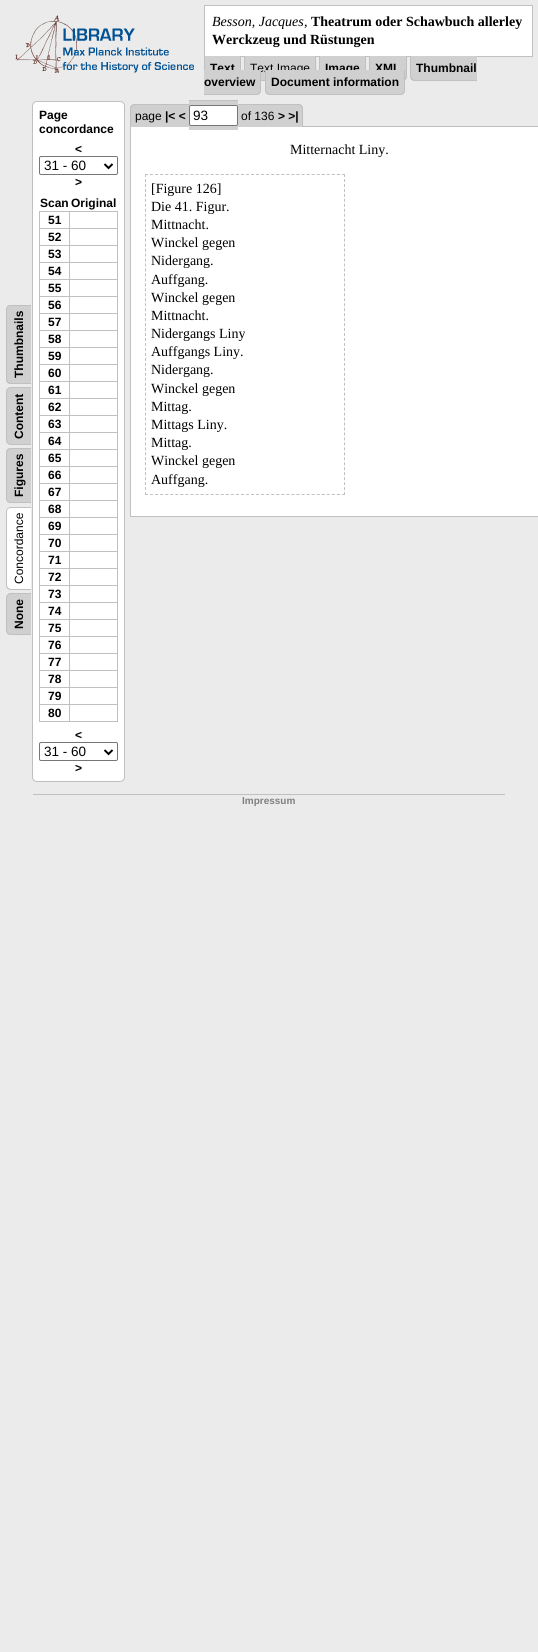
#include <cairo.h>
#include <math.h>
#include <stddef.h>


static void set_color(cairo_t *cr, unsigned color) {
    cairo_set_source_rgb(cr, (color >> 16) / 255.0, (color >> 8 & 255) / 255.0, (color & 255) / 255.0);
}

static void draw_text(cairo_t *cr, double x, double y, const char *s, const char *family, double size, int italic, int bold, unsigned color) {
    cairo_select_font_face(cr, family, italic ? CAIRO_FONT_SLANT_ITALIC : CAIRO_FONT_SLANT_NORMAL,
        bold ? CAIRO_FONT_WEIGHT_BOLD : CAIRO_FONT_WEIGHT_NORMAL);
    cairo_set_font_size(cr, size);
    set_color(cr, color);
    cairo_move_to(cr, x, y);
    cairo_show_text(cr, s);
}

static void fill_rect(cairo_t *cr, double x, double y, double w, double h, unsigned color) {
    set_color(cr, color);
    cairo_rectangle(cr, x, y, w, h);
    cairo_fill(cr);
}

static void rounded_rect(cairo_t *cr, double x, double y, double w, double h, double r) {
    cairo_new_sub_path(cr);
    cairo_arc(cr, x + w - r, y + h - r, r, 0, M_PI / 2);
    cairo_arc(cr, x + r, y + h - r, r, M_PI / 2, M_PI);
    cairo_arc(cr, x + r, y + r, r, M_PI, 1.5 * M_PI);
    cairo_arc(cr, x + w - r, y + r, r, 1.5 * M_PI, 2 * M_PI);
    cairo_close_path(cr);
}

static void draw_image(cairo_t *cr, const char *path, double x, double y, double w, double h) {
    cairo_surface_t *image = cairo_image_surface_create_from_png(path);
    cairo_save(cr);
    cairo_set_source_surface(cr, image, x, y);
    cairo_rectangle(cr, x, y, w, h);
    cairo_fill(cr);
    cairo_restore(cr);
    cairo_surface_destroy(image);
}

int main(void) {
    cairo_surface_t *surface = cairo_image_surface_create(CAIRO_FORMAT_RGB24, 538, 1652);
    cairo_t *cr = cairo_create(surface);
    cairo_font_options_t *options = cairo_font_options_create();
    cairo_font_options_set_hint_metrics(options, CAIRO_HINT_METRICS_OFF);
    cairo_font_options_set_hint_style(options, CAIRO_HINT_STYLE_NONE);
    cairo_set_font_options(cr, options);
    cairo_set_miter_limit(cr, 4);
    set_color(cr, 0xEBEBEB);
    cairo_paint(cr);
    draw_image(cr, "assets/img1.png", 15, 15, 179, 58);
    set_color(cr, 0xFFFFFF);
    cairo_rectangle(cr, 204.5, 5.5, 328, 51);
    cairo_fill_preserve(cr);
    set_color(cr, 0xC0C0C0);
    cairo_set_line_width(cr, 1);
    cairo_stroke(cr);
    draw_text(cr, 212, 26, "Besson, Jacques", "Liberation Serif", 14, 1, 0, 0x000000);
    draw_text(cr, 304, 26, ",", "Liberation Serif", 14, 0, 0, 0x000000);
    draw_text(cr, 311, 26, "Theatrum oder Schawbuch allerley", "Liberation Serif", 14, 0, 1, 0x000000);
    draw_text(cr, 212, 44, "Werckzeug und Rüstungen", "Liberation Serif", 14, 0, 1, 0x000000);
    fill_rect(cr, 205, 56, 35, 14, 0xD0D0D0);
    set_color(cr, 0xC0C0C0);
    cairo_set_fill_rule(cr, CAIRO_FILL_RULE_EVEN_ODD);
    cairo_new_path(cr);
    cairo_move_to(cr, 204, 56);
    cairo_line_to(cr, 241, 56);
    cairo_line_to(cr, 241, 76);
    cairo_curve_to(cr, 241, 79, 239, 81, 236, 81);
    cairo_line_to(cr, 209, 81);
    cairo_curve_to(cr, 206, 81, 204, 79, 204, 76);
    cairo_close_path(cr);
    cairo_move_to(cr, 205, 56);
    cairo_line_to(cr, 240, 56);
    cairo_line_to(cr, 240, 76);
    cairo_curve_to(cr, 240, 78, 238, 80, 236, 80);
    cairo_line_to(cr, 209, 80);
    cairo_curve_to(cr, 207, 80, 205, 78, 205, 76);
    cairo_close_path(cr);
    cairo_fill(cr);
    draw_text(cr, 210, 72, "Text", "Liberation Sans", 12, 0, 1, 0x000000);
    fill_rect(cr, 245, 56, 70, 24, 0xD0D0D0);
    set_color(cr, 0xC0C0C0);
    cairo_new_path(cr);
    cairo_move_to(cr, 244, 56);
    cairo_line_to(cr, 316, 56);
    cairo_curve_to(cr, 316, 85, 321, 81, 290, 81);
    cairo_line_to(cr, 248, 81);
    cairo_curve_to(cr, 246, 80, 244, 78, 244, 76);
    cairo_close_path(cr);
    cairo_move_to(cr, 245, 56);
    cairo_line_to(cr, 315, 56);
    cairo_line_to(cr, 315, 76);
    cairo_curve_to(cr, 315, 78, 313, 80, 311, 80);
    cairo_line_to(cr, 249, 80);
    cairo_curve_to(cr, 247, 80, 245, 78, 245, 76);
    cairo_close_path(cr);
    cairo_fill(cr);
    draw_text(cr, 250, 72, "Text Image", "Liberation Sans", 12, 0, 0, 0x000000);
    fill_rect(cr, 320, 56, 45, 14, 0xD0D0D0);
    set_color(cr, 0xC0C0C0);
    cairo_new_path(cr);
    cairo_move_to(cr, 319, 56);
    cairo_line_to(cr, 366, 56);
    cairo_line_to(cr, 366, 76);
    cairo_curve_to(cr, 366, 79, 364, 81, 361, 81);
    cairo_line_to(cr, 324, 81);
    cairo_curve_to(cr, 321, 81, 319, 79, 319, 76);
    cairo_close_path(cr);
    cairo_move_to(cr, 320, 56);
    cairo_line_to(cr, 365, 56);
    cairo_line_to(cr, 365, 76);
    cairo_curve_to(cr, 365, 78, 363, 80, 361, 80);
    cairo_line_to(cr, 324, 80);
    cairo_curve_to(cr, 322, 80, 320, 78, 320, 76);
    cairo_close_path(cr);
    cairo_fill(cr);
    draw_text(cr, 325, 72, "Image", "Liberation Sans", 12, 0, 1, 0x000000);
    set_color(cr, 0xD0D0D0);
    cairo_new_path(cr);
    cairo_move_to(cr, 369, 56);
    cairo_line_to(cr, 407, 56);
    cairo_line_to(cr, 407, 76);
    cairo_curve_to(cr, 407, 79, 405, 81, 402, 81);
    cairo_line_to(cr, 374, 81);
    cairo_curve_to(cr, 371, 81, 369, 79, 369, 76);
    cairo_close_path(cr);
    cairo_fill(cr);
    set_color(cr, 0xC0C0C0);
    cairo_new_path(cr);
    cairo_move_to(cr, 369, 56);
    cairo_line_to(cr, 407, 56);
    cairo_line_to(cr, 407, 76);
    cairo_curve_to(cr, 407, 79, 405, 81, 402, 81);
    cairo_line_to(cr, 374, 81);
    cairo_curve_to(cr, 371, 81, 369, 79, 369, 76);
    cairo_close_path(cr);
    cairo_move_to(cr, 370, 56);
    cairo_line_to(cr, 406, 56);
    cairo_line_to(cr, 406, 76);
    cairo_curve_to(cr, 406, 78, 404, 80, 402, 80);
    cairo_line_to(cr, 374, 80);
    cairo_curve_to(cr, 372, 80, 370, 78, 370, 76);
    cairo_close_path(cr);
    cairo_fill(cr);
    draw_text(cr, 375, 72, "XML", "Liberation Sans", 12, 0, 1, 0x000000);
    set_color(cr, 0xD0D0D0);
    cairo_new_path(cr);
    cairo_move_to(cr, 410, 56);
    cairo_line_to(cr, 477, 56);
    cairo_line_to(cr, 477, 81);
    cairo_line_to(cr, 415, 81);
    cairo_curve_to(cr, 412, 81, 410, 79, 410, 76);
    cairo_close_path(cr);
    cairo_fill(cr);
    set_color(cr, 0xC0C0C0);
    cairo_new_path(cr);
    cairo_move_to(cr, 410, 56);
    cairo_line_to(cr, 477, 56);
    cairo_line_to(cr, 477, 81);
    cairo_line_to(cr, 415, 81);
    cairo_curve_to(cr, 412, 81, 410, 79, 410, 76);
    cairo_close_path(cr);
    cairo_move_to(cr, 411, 56);
    cairo_line_to(cr, 477, 56);
    cairo_line_to(cr, 477, 80);
    cairo_line_to(cr, 415, 80);
    cairo_curve_to(cr, 413, 80, 411, 78, 411, 76);
    cairo_close_path(cr);
    cairo_fill(cr);
    draw_text(cr, 416, 72, "Thumbnail", "Liberation Sans", 12, 0, 1, 0x000000);
    set_color(cr, 0xD0D0D0);
    cairo_new_path(cr);
    cairo_move_to(cr, 204, 70);
    cairo_line_to(cr, 261, 70);
    cairo_line_to(cr, 261, 90);
    cairo_curve_to(cr, 261, 93, 259, 95, 256, 95);
    cairo_line_to(cr, 204, 95);
    cairo_close_path(cr);
    cairo_fill(cr);
    set_color(cr, 0xC0C0C0);
    cairo_new_path(cr);
    cairo_move_to(cr, 204, 70);
    cairo_line_to(cr, 261, 70);
    cairo_line_to(cr, 261, 90);
    cairo_curve_to(cr, 261, 93, 259, 95, 256, 95);
    cairo_line_to(cr, 204, 95);
    cairo_close_path(cr);
    cairo_move_to(cr, 204, 70);
    cairo_line_to(cr, 260, 70);
    cairo_line_to(cr, 260, 90);
    cairo_curve_to(cr, 260, 92, 258, 94, 256, 94);
    cairo_line_to(cr, 204, 94);
    cairo_close_path(cr);
    cairo_fill(cr);
    draw_text(cr, 204, 86, "overview", "Liberation Sans", 12, 0, 1, 0x000000);
    set_color(cr, 0xD0D0D0);
    cairo_new_path(cr);
    cairo_move_to(cr, 265, 70);
    cairo_line_to(cr, 405, 70);
    cairo_line_to(cr, 405, 90);
    cairo_curve_to(cr, 405, 93, 403, 95, 400, 95);
    cairo_line_to(cr, 270, 95);
    cairo_curve_to(cr, 267, 95, 265, 93, 265, 90);
    cairo_close_path(cr);
    cairo_fill(cr);
    set_color(cr, 0xC0C0C0);
    cairo_new_path(cr);
    cairo_move_to(cr, 265, 70);
    cairo_line_to(cr, 405, 70);
    cairo_line_to(cr, 405, 90);
    cairo_curve_to(cr, 405, 93, 403, 95, 400, 95);
    cairo_line_to(cr, 270, 95);
    cairo_curve_to(cr, 267, 95, 265, 93, 265, 90);
    cairo_close_path(cr);
    cairo_move_to(cr, 266, 70);
    cairo_line_to(cr, 404, 70);
    cairo_line_to(cr, 404, 90);
    cairo_curve_to(cr, 404, 92, 402, 94, 400, 94);
    cairo_line_to(cr, 270, 94);
    cairo_curve_to(cr, 268, 94, 266, 92, 266, 90);
    cairo_close_path(cr);
    cairo_fill(cr);
    draw_text(cr, 271, 86, "Document information", "Liberation Sans", 12, 0, 1, 0x000000);
    set_color(cr, 0xD0D0D0);
    cairo_set_fill_rule(cr, CAIRO_FILL_RULE_WINDING);
    cairo_new_path(cr);
    cairo_move_to(cr, 6, 379);
    cairo_line_to(cr, 6, 310);
    cairo_curve_to(cr, 6, 307, 8, 305, 11, 305);
    cairo_line_to(cr, 31, 305);
    cairo_line_to(cr, 31, 384);
    cairo_line_to(cr, 11, 384);
    cairo_curve_to(cr, 8, 384, 6, 382, 6, 379);
    cairo_close_path(cr);
    cairo_fill(cr);
    set_color(cr, 0xC0C0C0);
    cairo_set_fill_rule(cr, CAIRO_FILL_RULE_EVEN_ODD);
    cairo_new_path(cr);
    cairo_move_to(cr, 6, 379);
    cairo_line_to(cr, 6, 310);
    cairo_curve_to(cr, 6, 307, 8, 305, 11, 305);
    cairo_line_to(cr, 31, 305);
    cairo_line_to(cr, 31, 384);
    cairo_line_to(cr, 11, 384);
    cairo_curve_to(cr, 8, 384, 6, 382, 6, 379);
    cairo_close_path(cr);
    cairo_move_to(cr, 7, 379);
    cairo_line_to(cr, 7, 310);
    cairo_curve_to(cr, 7, 307, 9, 306, 11, 306);
    cairo_line_to(cr, 31, 306);
    cairo_line_to(cr, 31, 383);
    cairo_line_to(cr, 11, 383);
    cairo_curve_to(cr, 9, 383, 7, 381, 7, 379);
    cairo_close_path(cr);
    cairo_fill(cr);
    cairo_save(cr);
    cairo_translate(cr, 23, 378);
    cairo_rotate(cr, -90 * M_PI / 180);
    draw_text(cr, 0, 0, "Thumbnails", "Liberation Sans", 12, 0, 1, 0x000000);
    cairo_restore(cr);
    set_color(cr, 0xD0D0D0);
    cairo_set_fill_rule(cr, CAIRO_FILL_RULE_WINDING);
    cairo_new_path(cr);
    cairo_move_to(cr, 6, 440);
    cairo_line_to(cr, 6, 392);
    cairo_curve_to(cr, 6, 390, 8, 387, 11, 387);
    cairo_line_to(cr, 31, 387);
    cairo_line_to(cr, 31, 445);
    cairo_line_to(cr, 11, 445);
    cairo_curve_to(cr, 8, 445, 6, 442, 6, 440);
    cairo_close_path(cr);
    cairo_fill(cr);
    set_color(cr, 0xC0C0C0);
    cairo_set_fill_rule(cr, CAIRO_FILL_RULE_EVEN_ODD);
    cairo_new_path(cr);
    cairo_move_to(cr, 6, 440);
    cairo_line_to(cr, 6, 392);
    cairo_curve_to(cr, 6, 390, 8, 387, 11, 387);
    cairo_line_to(cr, 31, 387);
    cairo_line_to(cr, 31, 445);
    cairo_line_to(cr, 11, 445);
    cairo_curve_to(cr, 8, 445, 6, 442, 6, 440);
    cairo_close_path(cr);
    cairo_move_to(cr, 7, 440);
    cairo_line_to(cr, 7, 392);
    cairo_curve_to(cr, 7, 390, 9, 388, 11, 388);
    cairo_line_to(cr, 31, 388);
    cairo_line_to(cr, 31, 444);
    cairo_line_to(cr, 11, 444);
    cairo_curve_to(cr, 9, 444, 7, 442, 7, 440);
    cairo_close_path(cr);
    cairo_fill(cr);
    cairo_save(cr);
    cairo_translate(cr, 23, 439);
    cairo_rotate(cr, -90 * M_PI / 180);
    draw_text(cr, 0, 0, "Content", "Liberation Sans", 12, 0, 1, 0x000000);
    cairo_restore(cr);
    set_color(cr, 0xD0D0D0);
    cairo_set_fill_rule(cr, CAIRO_FILL_RULE_WINDING);
    cairo_new_path(cr);
    cairo_move_to(cr, 6, 498);
    cairo_line_to(cr, 6, 453);
    cairo_curve_to(cr, 6, 450, 8, 448, 11, 448);
    cairo_line_to(cr, 31, 448);
    cairo_line_to(cr, 31, 503);
    cairo_line_to(cr, 11, 503);
    cairo_curve_to(cr, 8, 503, 6, 501, 6, 498);
    cairo_close_path(cr);
    cairo_fill(cr);
    set_color(cr, 0xC0C0C0);
    cairo_set_fill_rule(cr, CAIRO_FILL_RULE_EVEN_ODD);
    cairo_new_path(cr);
    cairo_move_to(cr, 6, 498);
    cairo_line_to(cr, 6, 453);
    cairo_curve_to(cr, 6, 450, 8, 448, 11, 448);
    cairo_line_to(cr, 31, 448);
    cairo_line_to(cr, 31, 503);
    cairo_line_to(cr, 11, 503);
    cairo_curve_to(cr, 8, 503, 6, 501, 6, 498);
    cairo_close_path(cr);
    cairo_move_to(cr, 7, 498);
    cairo_line_to(cr, 7, 453);
    cairo_curve_to(cr, 7, 451, 9, 449, 11, 449);
    cairo_line_to(cr, 31, 449);
    cairo_line_to(cr, 31, 502);
    cairo_line_to(cr, 11, 502);
    cairo_curve_to(cr, 9, 502, 7, 501, 7, 498);
    cairo_close_path(cr);
    cairo_fill(cr);
    cairo_save(cr);
    cairo_translate(cr, 23, 497);
    cairo_rotate(cr, -90 * M_PI / 180);
    draw_text(cr, 0, 0, "Figures", "Liberation Sans", 12, 0, 1, 0x000000);
    cairo_restore(cr);
    set_color(cr, 0xFFFFFF);
    cairo_set_fill_rule(cr, CAIRO_FILL_RULE_WINDING);
    cairo_new_path(cr);
    cairo_move_to(cr, 6, 585);
    cairo_line_to(cr, 6, 512);
    cairo_curve_to(cr, 6, 509, 8, 507, 11, 507);
    cairo_line_to(cr, 31, 507);
    cairo_line_to(cr, 31, 590);
    cairo_line_to(cr, 11, 590);
    cairo_curve_to(cr, 8, 590, 6, 588, 6, 585);
    cairo_close_path(cr);
    cairo_fill(cr);
    set_color(cr, 0xC0C0C0);
    cairo_set_fill_rule(cr, CAIRO_FILL_RULE_EVEN_ODD);
    cairo_new_path(cr);
    cairo_move_to(cr, 6, 585);
    cairo_line_to(cr, 6, 512);
    cairo_curve_to(cr, 6, 509, 8, 507, 11, 507);
    cairo_line_to(cr, 31, 507);
    cairo_line_to(cr, 31, 590);
    cairo_line_to(cr, 11, 590);
    cairo_curve_to(cr, 8, 590, 6, 588, 6, 585);
    cairo_close_path(cr);
    cairo_move_to(cr, 7, 585);
    cairo_line_to(cr, 7, 512);
    cairo_curve_to(cr, 7, 509, 9, 508, 11, 508);
    cairo_line_to(cr, 31, 508);
    cairo_line_to(cr, 31, 589);
    cairo_line_to(cr, 11, 589);
    cairo_curve_to(cr, 9, 589, 7, 587, 7, 585);
    cairo_close_path(cr);
    cairo_fill(cr);
    cairo_save(cr);
    cairo_translate(cr, 23, 584);
    cairo_rotate(cr, -90 * M_PI / 180);
    draw_text(cr, 0, 0, "Concordance", "Liberation Sans", 12, 0, 0, 0x000000);
    cairo_restore(cr);
    set_color(cr, 0xD0D0D0);
    cairo_set_fill_rule(cr, CAIRO_FILL_RULE_WINDING);
    cairo_new_path(cr);
    cairo_move_to(cr, 6, 630);
    cairo_line_to(cr, 6, 598);
    cairo_curve_to(cr, 6, 596, 8, 593, 11, 593);
    cairo_line_to(cr, 31, 593);
    cairo_line_to(cr, 31, 635);
    cairo_line_to(cr, 11, 635);
    cairo_curve_to(cr, 8, 635, 6, 633, 6, 630);
    cairo_close_path(cr);
    cairo_fill(cr);
    set_color(cr, 0xC0C0C0);
    cairo_set_fill_rule(cr, CAIRO_FILL_RULE_EVEN_ODD);
    cairo_new_path(cr);
    cairo_move_to(cr, 6, 630);
    cairo_line_to(cr, 6, 598);
    cairo_curve_to(cr, 6, 596, 8, 593, 11, 593);
    cairo_line_to(cr, 31, 593);
    cairo_line_to(cr, 31, 635);
    cairo_line_to(cr, 11, 635);
    cairo_curve_to(cr, 8, 635, 6, 633, 6, 630);
    cairo_close_path(cr);
    cairo_move_to(cr, 7, 630);
    cairo_line_to(cr, 7, 598);
    cairo_curve_to(cr, 7, 596, 9, 594, 11, 594);
    cairo_line_to(cr, 31, 594);
    cairo_line_to(cr, 31, 634);
    cairo_line_to(cr, 11, 634);
    cairo_curve_to(cr, 9, 634, 7, 633, 7, 630);
    cairo_close_path(cr);
    cairo_fill(cr);
    cairo_save(cr);
    cairo_translate(cr, 23, 629);
    cairo_rotate(cr, -90 * M_PI / 180);
    draw_text(cr, 0, 0, "None", "Liberation Sans", 12, 0, 1, 0x000000);
    cairo_restore(cr);
    set_color(cr, 0xFFFFFF);
    rounded_rect(cr, 32.5, 101.5, 92, 680, 4.5);
    cairo_fill_preserve(cr);
    set_color(cr, 0xC0C0C0);
    cairo_stroke(cr);
    draw_text(cr, 39, 119, "Page", "Liberation Sans", 12, 0, 1, 0x000000);
    draw_text(cr, 39, 133, "concordance", "Liberation Sans", 12, 0, 1, 0x000000);
    draw_text(cr, 75, 153, "<", "Liberation Sans", 12, 0, 1, 0x000000);
    rounded_rect(cr, 39.5, 156.5, 78, 18, 1.5);
    set_color(cr, 0x767676);
    cairo_stroke(cr);
    cairo_new_path(cr);
    cairo_move_to(cr, 104.5, 164);
    cairo_line_to(cr, 108.5, 168);
    cairo_line_to(cr, 112.5, 164);
    set_color(cr, 0x000000);
    cairo_set_line_width(cr, 2);
    cairo_stroke(cr);
    draw_text(cr, 44, 170, "31 - 60", "Liberation Sans", 13.5, 0, 0, 0x000000);
    draw_text(cr, 75, 186, ">", "Liberation Sans", 12, 0, 1, 0x000000);
    draw_text(cr, 40, 207, "Scan", "Liberation Sans", 12, 0, 1, 0x000000);
    draw_text(cr, 71, 207, "Original", "Liberation Sans", 12, 0, 1, 0x000000);
    fill_rect(cr, 69, 211, 49, 1, 0xC0C0C0);
    fill_rect(cr, 69, 228, 49, 1, 0xC0C0C0);
    fill_rect(cr, 69, 245, 49, 1, 0xC0C0C0);
    fill_rect(cr, 69, 262, 49, 1, 0xC0C0C0);
    fill_rect(cr, 69, 279, 49, 1, 0xC0C0C0);
    fill_rect(cr, 69, 296, 49, 1, 0xC0C0C0);
    fill_rect(cr, 69, 313, 49, 1, 0xC0C0C0);
    fill_rect(cr, 69, 330, 49, 1, 0xC0C0C0);
    fill_rect(cr, 69, 347, 49, 1, 0xC0C0C0);
    fill_rect(cr, 69, 364, 49, 1, 0xC0C0C0);
    fill_rect(cr, 69, 381, 49, 1, 0xC0C0C0);
    fill_rect(cr, 69, 398, 49, 1, 0xC0C0C0);
    fill_rect(cr, 69, 415, 49, 1, 0xC0C0C0);
    fill_rect(cr, 69, 432, 49, 1, 0xC0C0C0);
    fill_rect(cr, 69, 449, 49, 1, 0xC0C0C0);
    fill_rect(cr, 69, 466, 49, 1, 0xC0C0C0);
    fill_rect(cr, 69, 483, 49, 1, 0xC0C0C0);
    fill_rect(cr, 69, 500, 49, 1, 0xC0C0C0);
    fill_rect(cr, 69, 517, 49, 1, 0xC0C0C0);
    fill_rect(cr, 69, 534, 49, 1, 0xC0C0C0);
    fill_rect(cr, 69, 551, 49, 1, 0xC0C0C0);
    fill_rect(cr, 69, 568, 49, 1, 0xC0C0C0);
    fill_rect(cr, 69, 585, 49, 1, 0xC0C0C0);
    fill_rect(cr, 69, 602, 49, 1, 0xC0C0C0);
    fill_rect(cr, 69, 619, 49, 1, 0xC0C0C0);
    fill_rect(cr, 69, 636, 49, 1, 0xC0C0C0);
    fill_rect(cr, 69, 653, 49, 1, 0xC0C0C0);
    fill_rect(cr, 69, 670, 49, 1, 0xC0C0C0);
    fill_rect(cr, 69, 687, 49, 1, 0xC0C0C0);
    fill_rect(cr, 69, 704, 49, 1, 0xC0C0C0);
    fill_rect(cr, 117, 704, 1, 18, 0xC0C0C0);
    fill_rect(cr, 69, 721, 49, 1, 0xC0C0C0);
    fill_rect(cr, 69, 704, 1, 18, 0xC0C0C0);
    fill_rect(cr, 39, 704, 31, 1, 0xC0C0C0);
    fill_rect(cr, 69, 687, 1, 18, 0xC0C0C0);
    fill_rect(cr, 39, 687, 31, 1, 0xC0C0C0);
    fill_rect(cr, 69, 670, 1, 18, 0xC0C0C0);
    fill_rect(cr, 39, 670, 31, 1, 0xC0C0C0);
    fill_rect(cr, 69, 653, 1, 18, 0xC0C0C0);
    fill_rect(cr, 39, 653, 31, 1, 0xC0C0C0);
    fill_rect(cr, 69, 636, 1, 18, 0xC0C0C0);
    fill_rect(cr, 39, 636, 31, 1, 0xC0C0C0);
    fill_rect(cr, 69, 619, 1, 18, 0xC0C0C0);
    fill_rect(cr, 39, 619, 31, 1, 0xC0C0C0);
    fill_rect(cr, 69, 602, 1, 18, 0xC0C0C0);
    fill_rect(cr, 39, 602, 31, 1, 0xC0C0C0);
    fill_rect(cr, 69, 585, 1, 18, 0xC0C0C0);
    fill_rect(cr, 39, 585, 31, 1, 0xC0C0C0);
    fill_rect(cr, 69, 568, 1, 18, 0xC0C0C0);
    fill_rect(cr, 39, 568, 31, 1, 0xC0C0C0);
    fill_rect(cr, 69, 551, 1, 18, 0xC0C0C0);
    fill_rect(cr, 39, 551, 31, 1, 0xC0C0C0);
    fill_rect(cr, 69, 534, 1, 18, 0xC0C0C0);
    fill_rect(cr, 39, 534, 31, 1, 0xC0C0C0);
    fill_rect(cr, 69, 517, 1, 18, 0xC0C0C0);
    fill_rect(cr, 39, 517, 31, 1, 0xC0C0C0);
    fill_rect(cr, 69, 500, 1, 18, 0xC0C0C0);
    fill_rect(cr, 39, 500, 31, 1, 0xC0C0C0);
    fill_rect(cr, 69, 483, 1, 18, 0xC0C0C0);
    fill_rect(cr, 39, 483, 31, 1, 0xC0C0C0);
    fill_rect(cr, 69, 466, 1, 18, 0xC0C0C0);
    fill_rect(cr, 39, 466, 31, 1, 0xC0C0C0);
    fill_rect(cr, 69, 449, 1, 18, 0xC0C0C0);
    fill_rect(cr, 39, 449, 31, 1, 0xC0C0C0);
    fill_rect(cr, 69, 432, 1, 18, 0xC0C0C0);
    fill_rect(cr, 39, 432, 31, 1, 0xC0C0C0);
    fill_rect(cr, 69, 415, 1, 18, 0xC0C0C0);
    fill_rect(cr, 39, 415, 31, 1, 0xC0C0C0);
    fill_rect(cr, 69, 398, 1, 18, 0xC0C0C0);
    fill_rect(cr, 39, 398, 31, 1, 0xC0C0C0);
    fill_rect(cr, 69, 381, 1, 18, 0xC0C0C0);
    fill_rect(cr, 39, 381, 31, 1, 0xC0C0C0);
    fill_rect(cr, 69, 364, 1, 18, 0xC0C0C0);
    fill_rect(cr, 39, 364, 31, 1, 0xC0C0C0);
    fill_rect(cr, 69, 347, 1, 18, 0xC0C0C0);
    fill_rect(cr, 39, 347, 31, 1, 0xC0C0C0);
    fill_rect(cr, 69, 330, 1, 18, 0xC0C0C0);
    fill_rect(cr, 39, 330, 31, 1, 0xC0C0C0);
    fill_rect(cr, 69, 313, 1, 18, 0xC0C0C0);
    fill_rect(cr, 39, 313, 31, 1, 0xC0C0C0);
    fill_rect(cr, 69, 296, 1, 18, 0xC0C0C0);
    fill_rect(cr, 39, 296, 31, 1, 0xC0C0C0);
    fill_rect(cr, 69, 279, 1, 18, 0xC0C0C0);
    fill_rect(cr, 39, 279, 31, 1, 0xC0C0C0);
    fill_rect(cr, 69, 262, 1, 18, 0xC0C0C0);
    fill_rect(cr, 39, 262, 31, 1, 0xC0C0C0);
    fill_rect(cr, 69, 245, 1, 18, 0xC0C0C0);
    fill_rect(cr, 39, 245, 31, 1, 0xC0C0C0);
    fill_rect(cr, 69, 228, 1, 18, 0xC0C0C0);
    fill_rect(cr, 39, 228, 31, 1, 0xC0C0C0);
    fill_rect(cr, 69, 211, 1, 18, 0xC0C0C0);
    fill_rect(cr, 39, 211, 31, 1, 0xC0C0C0);
    fill_rect(cr, 39, 721, 31, 1, 0xC0C0C0);
    fill_rect(cr, 39, 704, 1, 18, 0xC0C0C0);
    fill_rect(cr, 39, 687, 1, 18, 0xC0C0C0);
    fill_rect(cr, 39, 670, 1, 18, 0xC0C0C0);
    fill_rect(cr, 39, 653, 1, 18, 0xC0C0C0);
    fill_rect(cr, 39, 636, 1, 18, 0xC0C0C0);
    fill_rect(cr, 39, 619, 1, 18, 0xC0C0C0);
    fill_rect(cr, 39, 602, 1, 18, 0xC0C0C0);
    fill_rect(cr, 39, 585, 1, 18, 0xC0C0C0);
    fill_rect(cr, 39, 568, 1, 18, 0xC0C0C0);
    fill_rect(cr, 39, 551, 1, 18, 0xC0C0C0);
    fill_rect(cr, 39, 534, 1, 18, 0xC0C0C0);
    fill_rect(cr, 39, 517, 1, 18, 0xC0C0C0);
    fill_rect(cr, 39, 500, 1, 18, 0xC0C0C0);
    fill_rect(cr, 39, 483, 1, 18, 0xC0C0C0);
    fill_rect(cr, 39, 466, 1, 18, 0xC0C0C0);
    fill_rect(cr, 39, 449, 1, 18, 0xC0C0C0);
    fill_rect(cr, 39, 432, 1, 18, 0xC0C0C0);
    fill_rect(cr, 39, 415, 1, 18, 0xC0C0C0);
    fill_rect(cr, 39, 398, 1, 18, 0xC0C0C0);
    fill_rect(cr, 39, 381, 1, 18, 0xC0C0C0);
    fill_rect(cr, 39, 364, 1, 18, 0xC0C0C0);
    fill_rect(cr, 39, 347, 1, 18, 0xC0C0C0);
    fill_rect(cr, 39, 330, 1, 18, 0xC0C0C0);
    fill_rect(cr, 39, 313, 1, 18, 0xC0C0C0);
    fill_rect(cr, 39, 296, 1, 18, 0xC0C0C0);
    fill_rect(cr, 39, 279, 1, 18, 0xC0C0C0);
    fill_rect(cr, 39, 262, 1, 18, 0xC0C0C0);
    fill_rect(cr, 39, 245, 1, 18, 0xC0C0C0);
    fill_rect(cr, 39, 228, 1, 18, 0xC0C0C0);
    fill_rect(cr, 39, 211, 1, 18, 0xC0C0C0);
    draw_text(cr, 48, 224, "51", "Liberation Sans", 12, 0, 1, 0x000000);
    fill_rect(cr, 117, 687, 1, 18, 0xC0C0C0);
    fill_rect(cr, 117, 670, 1, 18, 0xC0C0C0);
    fill_rect(cr, 117, 653, 1, 18, 0xC0C0C0);
    fill_rect(cr, 117, 636, 1, 18, 0xC0C0C0);
    fill_rect(cr, 117, 619, 1, 18, 0xC0C0C0);
    fill_rect(cr, 117, 602, 1, 18, 0xC0C0C0);
    fill_rect(cr, 117, 585, 1, 18, 0xC0C0C0);
    fill_rect(cr, 117, 568, 1, 18, 0xC0C0C0);
    fill_rect(cr, 117, 551, 1, 18, 0xC0C0C0);
    fill_rect(cr, 117, 534, 1, 18, 0xC0C0C0);
    fill_rect(cr, 117, 517, 1, 18, 0xC0C0C0);
    fill_rect(cr, 117, 500, 1, 18, 0xC0C0C0);
    fill_rect(cr, 117, 483, 1, 18, 0xC0C0C0);
    fill_rect(cr, 117, 466, 1, 18, 0xC0C0C0);
    fill_rect(cr, 117, 449, 1, 18, 0xC0C0C0);
    fill_rect(cr, 117, 432, 1, 18, 0xC0C0C0);
    fill_rect(cr, 117, 415, 1, 18, 0xC0C0C0);
    fill_rect(cr, 117, 398, 1, 18, 0xC0C0C0);
    fill_rect(cr, 117, 381, 1, 18, 0xC0C0C0);
    fill_rect(cr, 117, 364, 1, 18, 0xC0C0C0);
    fill_rect(cr, 117, 347, 1, 18, 0xC0C0C0);
    fill_rect(cr, 117, 330, 1, 18, 0xC0C0C0);
    fill_rect(cr, 117, 313, 1, 18, 0xC0C0C0);
    fill_rect(cr, 117, 296, 1, 18, 0xC0C0C0);
    fill_rect(cr, 117, 279, 1, 18, 0xC0C0C0);
    fill_rect(cr, 117, 262, 1, 18, 0xC0C0C0);
    fill_rect(cr, 117, 245, 1, 18, 0xC0C0C0);
    fill_rect(cr, 117, 228, 1, 18, 0xC0C0C0);
    fill_rect(cr, 117, 211, 1, 18, 0xC0C0C0);
    draw_text(cr, 48, 241, "52", "Liberation Sans", 12, 0, 1, 0x000000);
    draw_text(cr, 48, 258, "53", "Liberation Sans", 12, 0, 1, 0x000000);
    draw_text(cr, 48, 275, "54", "Liberation Sans", 12, 0, 1, 0x000000);
    draw_text(cr, 48, 292, "55", "Liberation Sans", 12, 0, 1, 0x000000);
    draw_text(cr, 48, 309, "56", "Liberation Sans", 12, 0, 1, 0x000000);
    draw_text(cr, 48, 326, "57", "Liberation Sans", 12, 0, 1, 0x000000);
    draw_text(cr, 48, 343, "58", "Liberation Sans", 12, 0, 1, 0x000000);
    draw_text(cr, 48, 360, "59", "Liberation Sans", 12, 0, 1, 0x000000);
    draw_text(cr, 48, 377, "60", "Liberation Sans", 12, 0, 1, 0x000000);
    draw_text(cr, 48, 394, "61", "Liberation Sans", 12, 0, 1, 0x000000);
    draw_text(cr, 48, 411, "62", "Liberation Sans", 12, 0, 1, 0x000000);
    draw_text(cr, 48, 428, "63", "Liberation Sans", 12, 0, 1, 0x000000);
    draw_text(cr, 48, 445, "64", "Liberation Sans", 12, 0, 1, 0x000000);
    draw_text(cr, 48, 462, "65", "Liberation Sans", 12, 0, 1, 0x000000);
    draw_text(cr, 48, 479, "66", "Liberation Sans", 12, 0, 1, 0x000000);
    draw_text(cr, 48, 496, "67", "Liberation Sans", 12, 0, 1, 0x000000);
    draw_text(cr, 48, 513, "68", "Liberation Sans", 12, 0, 1, 0x000000);
    draw_text(cr, 48, 530, "69", "Liberation Sans", 12, 0, 1, 0x000000);
    draw_text(cr, 48, 547, "70", "Liberation Sans", 12, 0, 1, 0x000000);
    draw_text(cr, 48, 564, "71", "Liberation Sans", 12, 0, 1, 0x000000);
    draw_text(cr, 48, 581, "72", "Liberation Sans", 12, 0, 1, 0x000000);
    draw_text(cr, 48, 598, "73", "Liberation Sans", 12, 0, 1, 0x000000);
    draw_text(cr, 48, 615, "74", "Liberation Sans", 12, 0, 1, 0x000000);
    draw_text(cr, 48, 632, "75", "Liberation Sans", 12, 0, 1, 0x000000);
    draw_text(cr, 48, 649, "76", "Liberation Sans", 12, 0, 1, 0x000000);
    draw_text(cr, 48, 666, "77", "Liberation Sans", 12, 0, 1, 0x000000);
    draw_text(cr, 48, 683, "78", "Liberation Sans", 12, 0, 1, 0x000000);
    draw_text(cr, 48, 700, "79", "Liberation Sans", 12, 0, 1, 0x000000);
    draw_text(cr, 48, 717, "80", "Liberation Sans", 12, 0, 1, 0x000000);
    draw_text(cr, 75, 739, "<", "Liberation Sans", 12, 0, 1, 0x000000);
    rounded_rect(cr, 39.5, 742.5, 78, 18, 1.5);
    set_color(cr, 0x767676);
    cairo_set_line_width(cr, 1);
    cairo_stroke(cr);
    cairo_new_path(cr);
    cairo_move_to(cr, 104.5, 750);
    cairo_line_to(cr, 108.5, 754);
    cairo_line_to(cr, 112.5, 750);
    set_color(cr, 0x000000);
    cairo_set_line_width(cr, 2);
    cairo_stroke(cr);
    draw_text(cr, 44, 756, "31 - 60", "Liberation Sans", 13.5, 0, 0, 0x000000);
    draw_text(cr, 75, 772, ">", "Liberation Sans", 12, 0, 1, 0x000000);
    set_color(cr, 0xFFFFFF);
    cairo_rectangle(cr, 130.5, 126.5, 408, 390);
    cairo_fill_preserve(cr);
    set_color(cr, 0xC0C0C0);
    cairo_set_line_width(cr, 1);
    cairo_stroke(cr);
    set_color(cr, 0xD0D0D0);
    cairo_new_path(cr);
    cairo_move_to(cr, 135, 104);
    cairo_line_to(cr, 165, 104);
    cairo_line_to(cr, 165, 127);
    cairo_line_to(cr, 130, 127);
    cairo_line_to(cr, 130, 109);
    cairo_curve_to(cr, 130, 106, 132, 104, 135, 104);
    cairo_close_path(cr);
    cairo_fill(cr);
    set_color(cr, 0xC0C0C0);
    cairo_new_path(cr);
    cairo_move_to(cr, 135, 104);
    cairo_line_to(cr, 165, 104);
    cairo_line_to(cr, 165, 127);
    cairo_line_to(cr, 130, 127);
    cairo_line_to(cr, 130, 109);
    cairo_curve_to(cr, 130, 106, 132, 104, 135, 104);
    cairo_close_path(cr);
    cairo_move_to(cr, 135, 105);
    cairo_line_to(cr, 165, 105);
    cairo_line_to(cr, 165, 127);
    cairo_line_to(cr, 131, 127);
    cairo_line_to(cr, 131, 109);
    cairo_curve_to(cr, 131, 107, 133, 105, 135, 105);
    cairo_close_path(cr);
    cairo_fill(cr);
    fill_rect(cr, 165, 105, 10, 22, 0xD0D0D0);
    fill_rect(cr, 165, 104, 10, 1, 0xC0C0C0);
    fill_rect(cr, 175, 104, 14, 23, 0xD0D0D0);
    fill_rect(cr, 175, 104, 14, 1, 0xC0C0C0);
    fill_rect(cr, 189, 101, 49, 29, 0xD0D0D0);
    fill_rect(cr, 189, 100, 49, 1, 0xC0C0C0);
    fill_rect(cr, 238, 104, 3, 23, 0xD0D0D0);
    fill_rect(cr, 238, 104, 40, 1, 0xC0C0C0);
    fill_rect(cr, 241, 105, 37, 22, 0xD0D0D0);
    fill_rect(cr, 278, 104, 10, 23, 0xD0D0D0);
    fill_rect(cr, 278, 104, 10, 1, 0xC0C0C0);
    set_color(cr, 0xD0D0D0);
    cairo_new_path(cr);
    cairo_move_to(cr, 288, 104);
    cairo_line_to(cr, 298, 104);
    cairo_curve_to(cr, 301, 104, 303, 106, 303, 109);
    cairo_line_to(cr, 303, 127);
    cairo_line_to(cr, 288, 127);
    cairo_close_path(cr);
    cairo_fill(cr);
    set_color(cr, 0xC0C0C0);
    cairo_new_path(cr);
    cairo_move_to(cr, 288, 104);
    cairo_line_to(cr, 298, 104);
    cairo_curve_to(cr, 301, 104, 303, 106, 303, 109);
    cairo_line_to(cr, 303, 127);
    cairo_line_to(cr, 288, 127);
    cairo_close_path(cr);
    cairo_move_to(cr, 288, 105);
    cairo_line_to(cr, 298, 105);
    cairo_curve_to(cr, 300, 105, 302, 107, 302, 109);
    cairo_line_to(cr, 302, 127);
    cairo_line_to(cr, 288, 127);
    cairo_close_path(cr);
    cairo_fill(cr);
    draw_text(cr, 135, 120, "page", "Liberation Sans", 12, 0, 0, 0x000000);
    draw_text(cr, 165, 120, "|< <", "Liberation Sans", 12, 0, 1, 0x000000);
    set_color(cr, 0xFFFFFF);
    rounded_rect(cr, 189.5, 105.5, 48, 20, 1.5);
    cairo_fill_preserve(cr);
    set_color(cr, 0x767676);
    cairo_stroke(cr);
    draw_text(cr, 193, 120, "93", "Liberation Sans", 13.5, 0, 0, 0x000000);
    draw_text(cr, 241, 120, "of 136", "Liberation Sans", 12, 0, 0, 0x000000);
    draw_text(cr, 278, 120, "> >|", "Liberation Sans", 12, 0, 1, 0x000000);
    draw_text(cr, 290, 154, "Mitternacht Liny.", "Liberation Serif", 14, 0, 0, 0x000000);
    cairo_new_path(cr);
    cairo_move_to(cr, 145, 174.5);
    cairo_line_to(cr, 345, 174.5);
    set_color(cr, 0xC0C0C0);
    cairo_set_dash(cr, (double[]){3, 2.05}, 2, 0);
    cairo_stroke(cr);
    cairo_new_path(cr);
    cairo_move_to(cr, 344.5, 174);
    cairo_line_to(cr, 344.5, 495);
    cairo_set_dash(cr, (double[]){3, 1.97}, 2, 0);
    cairo_stroke(cr);
    cairo_new_path(cr);
    cairo_move_to(cr, 145, 494.5);
    cairo_line_to(cr, 345, 494.5);
    cairo_set_dash(cr, (double[]){3, 2.05}, 2, 0);
    cairo_stroke(cr);
    cairo_new_path(cr);
    cairo_move_to(cr, 145.5, 174);
    cairo_line_to(cr, 145.5, 495);
    cairo_set_dash(cr, (double[]){3, 1.97}, 2, 0);
    cairo_stroke(cr);
    draw_text(cr, 151, 193, "[Figure 126]", "Liberation Serif", 14, 0, 0, 0x000000);
    draw_text(cr, 151, 211, "Die 41. Figur.", "Liberation Serif", 14, 0, 0, 0x000000);
    draw_text(cr, 151, 229, "Mittnacht.", "Liberation Serif", 14, 0, 0, 0x000000);
    draw_text(cr, 151, 247, "Winckel gegen", "Liberation Serif", 14, 0, 0, 0x000000);
    draw_text(cr, 151, 265, "Nidergang.", "Liberation Serif", 14, 0, 0, 0x000000);
    draw_text(cr, 151, 284, "Auffgang.", "Liberation Serif", 14, 0, 0, 0x000000);
    draw_text(cr, 151, 302, "Winckel gegen", "Liberation Serif", 14, 0, 0, 0x000000);
    draw_text(cr, 151, 320, "Mittnacht.", "Liberation Serif", 14, 0, 0, 0x000000);
    draw_text(cr, 151, 338, "Nidergangs Liny", "Liberation Serif", 14, 0, 0, 0x000000);
    draw_text(cr, 151, 356, "Auffgangs Liny.", "Liberation Serif", 14, 0, 0, 0x000000);
    draw_text(cr, 151, 374, "Nidergang.", "Liberation Serif", 14, 0, 0, 0x000000);
    draw_text(cr, 151, 393, "Winckel gegen", "Liberation Serif", 14, 0, 0, 0x000000);
    draw_text(cr, 151, 411, "Mittag.", "Liberation Serif", 14, 0, 0, 0x000000);
    draw_text(cr, 151, 429, "Mittags Liny.", "Liberation Serif", 14, 0, 0, 0x000000);
    draw_text(cr, 151, 447, "Mittag.", "Liberation Serif", 14, 0, 0, 0x000000);
    draw_text(cr, 151, 465, "Winckel gegen", "Liberation Serif", 14, 0, 0, 0x000000);
    draw_text(cr, 151, 484, "Auffgang.", "Liberation Serif", 14, 0, 0, 0x000000);
    fill_rect(cr, 33, 794, 472, 1, 0xC0C0C0);
    draw_text(cr, 242, 804, "Impressum", "Liberation Sans", 10, 0, 1, 0x808080);
    cairo_surface_write_to_png(surface, "output.png");
    cairo_font_options_destroy(options);
    cairo_destroy(cr);
    cairo_surface_destroy(surface);
    return 0;
}
